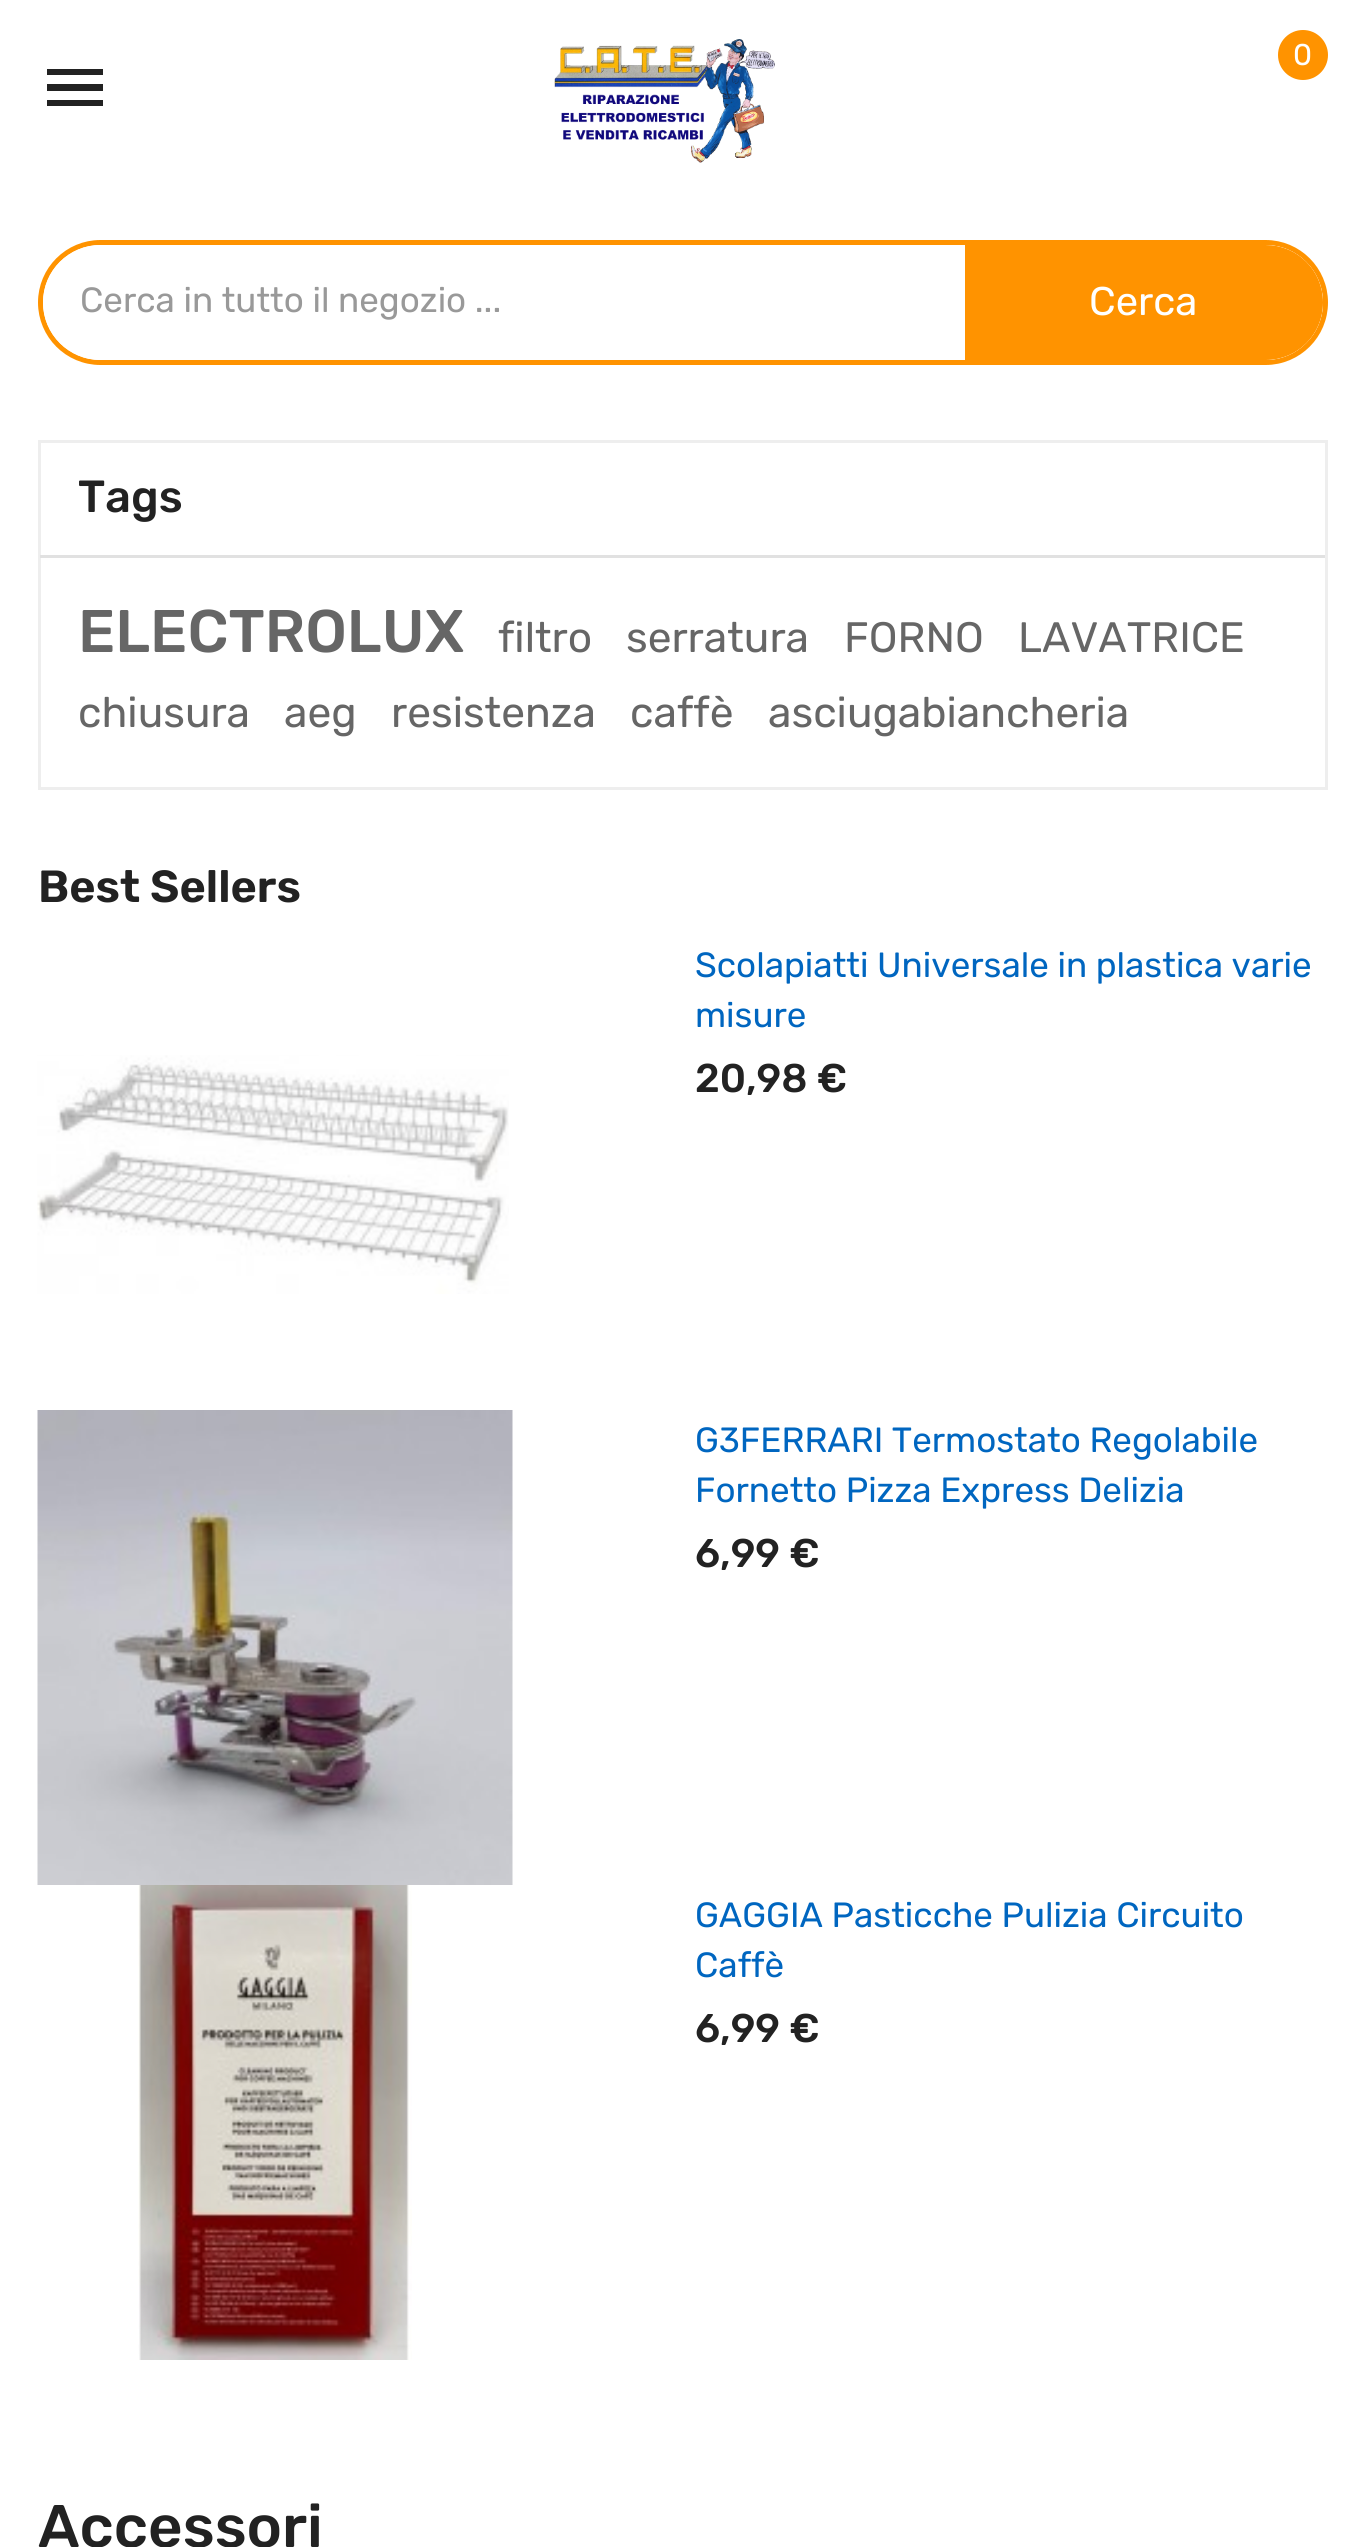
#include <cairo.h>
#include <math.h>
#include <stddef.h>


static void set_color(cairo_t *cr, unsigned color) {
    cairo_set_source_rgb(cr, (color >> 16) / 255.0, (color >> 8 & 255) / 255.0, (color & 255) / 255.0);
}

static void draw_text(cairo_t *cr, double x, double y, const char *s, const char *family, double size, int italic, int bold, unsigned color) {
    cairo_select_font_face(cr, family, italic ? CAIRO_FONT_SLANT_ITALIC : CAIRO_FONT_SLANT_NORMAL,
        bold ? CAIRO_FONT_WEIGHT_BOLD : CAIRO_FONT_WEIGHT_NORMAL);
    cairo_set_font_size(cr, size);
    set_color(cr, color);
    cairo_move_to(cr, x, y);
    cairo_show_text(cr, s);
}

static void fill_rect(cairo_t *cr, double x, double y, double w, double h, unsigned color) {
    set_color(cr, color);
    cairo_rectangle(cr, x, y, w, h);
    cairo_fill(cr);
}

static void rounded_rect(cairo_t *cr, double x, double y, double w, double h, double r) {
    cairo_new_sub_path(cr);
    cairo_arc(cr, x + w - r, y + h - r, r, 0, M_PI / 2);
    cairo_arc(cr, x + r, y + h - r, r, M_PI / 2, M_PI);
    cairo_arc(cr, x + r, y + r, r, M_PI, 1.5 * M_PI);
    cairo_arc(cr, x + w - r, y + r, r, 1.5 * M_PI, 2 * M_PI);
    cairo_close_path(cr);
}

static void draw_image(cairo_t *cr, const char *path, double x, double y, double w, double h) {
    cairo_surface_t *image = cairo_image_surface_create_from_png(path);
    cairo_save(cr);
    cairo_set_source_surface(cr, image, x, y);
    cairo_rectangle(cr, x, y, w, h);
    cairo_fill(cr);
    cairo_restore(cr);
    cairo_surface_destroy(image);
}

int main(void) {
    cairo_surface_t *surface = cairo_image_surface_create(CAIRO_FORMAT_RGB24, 1365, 2547);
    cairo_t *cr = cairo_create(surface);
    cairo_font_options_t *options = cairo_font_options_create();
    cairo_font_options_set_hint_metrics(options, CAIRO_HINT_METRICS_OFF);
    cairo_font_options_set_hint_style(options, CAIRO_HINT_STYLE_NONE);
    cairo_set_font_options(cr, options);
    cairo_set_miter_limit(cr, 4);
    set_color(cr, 0xFFFFFF);
    cairo_paint(cr);
    draw_image(cr, "assets/img1.png", 554, 39, 221, 124);
    set_color(cr, 0xFF9300);
    cairo_arc(cr, 1303, 55, 25, 0, 2 * M_PI);
    cairo_fill(cr);
    draw_text(cr, 1293, 65, "0", "Rubik", 30, 0, 0, 0xFFFFFF);
    set_color(cr, 0x222222);
    cairo_new_path(cr);
    cairo_move_to(cr, 47, 69);
    cairo_line_to(cr, 103, 69);
    cairo_line_to(cr, 103, 75);
    cairo_line_to(cr, 47, 75);
    cairo_close_path(cr);
    cairo_move_to(cr, 47, 91);
    cairo_line_to(cr, 47, 84);
    cairo_line_to(cr, 103, 84);
    cairo_line_to(cr, 103, 91);
    cairo_close_path(cr);
    cairo_move_to(cr, 47, 106);
    cairo_line_to(cr, 47, 100);
    cairo_line_to(cr, 103, 100);
    cairo_line_to(cr, 103, 106);
    cairo_close_path(cr);
    cairo_fill(cr);
    rounded_rect(cr, 40.5, 242.5, 1285, 120, 60);
    set_color(cr, 0xFF9300);
    cairo_set_line_width(cr, 5);
    cairo_stroke(cr);
    set_color(cr, 0xFFFFFF);
    rounded_rect(cr, 43, 245, 1280, 115, 57.5);
    cairo_fill(cr);
    draw_text(cr, 80, 312, "Cerca in tutto il negozio ...", "Rubik", 35, 0, 0, 0x999999);
    set_color(cr, 0xFF9300);
    cairo_new_path(cr);
    cairo_move_to(cr, 965, 245);
    cairo_line_to(cr, 1265.5, 245);
    cairo_curve_to(cr, 1297.5, 245, 1323, 270.5, 1323, 302.5);
    cairo_curve_to(cr, 1323, 334.5, 1297.5, 360, 1265.5, 360);
    cairo_line_to(cr, 965, 360);
    cairo_close_path(cr);
    cairo_fill(cr);
    draw_text(cr, 1089, 315, "Cerca", "Rubik", 40, 0, 0, 0xFFFFFF);
    cairo_rectangle(cr, 39.5, 441.5, 1287, 347);
    set_color(cr, 0xEEEEEE);
    cairo_set_line_width(cr, 3);
    cairo_stroke(cr);
    fill_rect(cr, 40, 555, 1285, 3, 0xE1E1E1);
    draw_text(cr, 78, 512, "Tags", "Rubik Medium", 45, 0, 0, 0x222222);
    draw_text(cr, 78, 652, "ELECTROLUX", "Rubik Medium", 60, 0, 0, 0x666666);
    draw_text(cr, 498, 652, "filtro", "Rubik", 42.5, 0, 0, 0x666666);
    draw_text(cr, 626, 652, "serratura", "Rubik", 42.5, 0, 0, 0x666666);
    draw_text(cr, 844, 652, "FORNO", "Rubik", 42.5, 0, 0, 0x666666);
    draw_text(cr, 1018, 652, "LAVATRICE", "Rubik", 42.5, 0, 0, 0x666666);
    draw_text(cr, 78, 727, "chiusura", "Rubik", 42.5, 0, 0, 0x666666);
    draw_text(cr, 284, 727, "aeg", "Rubik", 42.5, 0, 0, 0x666666);
    draw_text(cr, 391, 727, "resistenza", "Rubik", 42.5, 0, 0, 0x666666);
    draw_text(cr, 630, 727, "caffè", "Rubik", 42.5, 0, 0, 0x666666);
    draw_text(cr, 768, 727, "asciugabiancheria", "Rubik", 42.5, 0, 0, 0x666666);
    draw_text(cr, 38, 902, "Best Sellers", "Rubik SemiBold", 45, 0, 0, 0x222222);
    draw_text(cr, 695, 977, "Scolapiatti Universale in plastica varie", "Rubik", 35, 0, 0, 0x0066C0);
    draw_text(cr, 695, 1027, "misure", "Rubik", 35, 0, 0, 0x0066C0);
    draw_text(cr, 695, 1092, "20,98 €", "Rubik Medium", 40, 0, 0, 0x222222);
    draw_image(cr, "assets/img2.png", 37, 1055, 472, 239);
    draw_image(cr, "assets/img3.png", 37, 1410, 476, 475);
    draw_text(cr, 695, 1452, "G3FERRARI Termostato Regolabile", "Rubik", 35, 0, 0, 0x0066C0);
    draw_text(cr, 695, 1502, "Fornetto Pizza Express Delizia", "Rubik", 35, 0, 0, 0x0066C0);
    draw_text(cr, 695, 1567, "6,99 €", "Rubik Medium", 40, 0, 0, 0x222222);
    draw_image(cr, "assets/img4.png", 138, 1885, 274, 475);
    draw_text(cr, 695, 1927, "GAGGIA Pasticche Pulizia Circuito", "Rubik", 35, 0, 0, 0x0066C0);
    draw_text(cr, 695, 1977, "Caffè", "Rubik", 35, 0, 0, 0x0066C0);
    draw_text(cr, 695, 2042, "6,99 €", "Rubik Medium", 40, 0, 0, 0x222222);
    draw_text(cr, 38, 2547, "Accessori", "Rubik Medium", 60, 0, 0, 0x222222);
    cairo_surface_write_to_png(surface, "output.png");
    cairo_font_options_destroy(options);
    cairo_destroy(cr);
    cairo_surface_destroy(surface);
    return 0;
}
